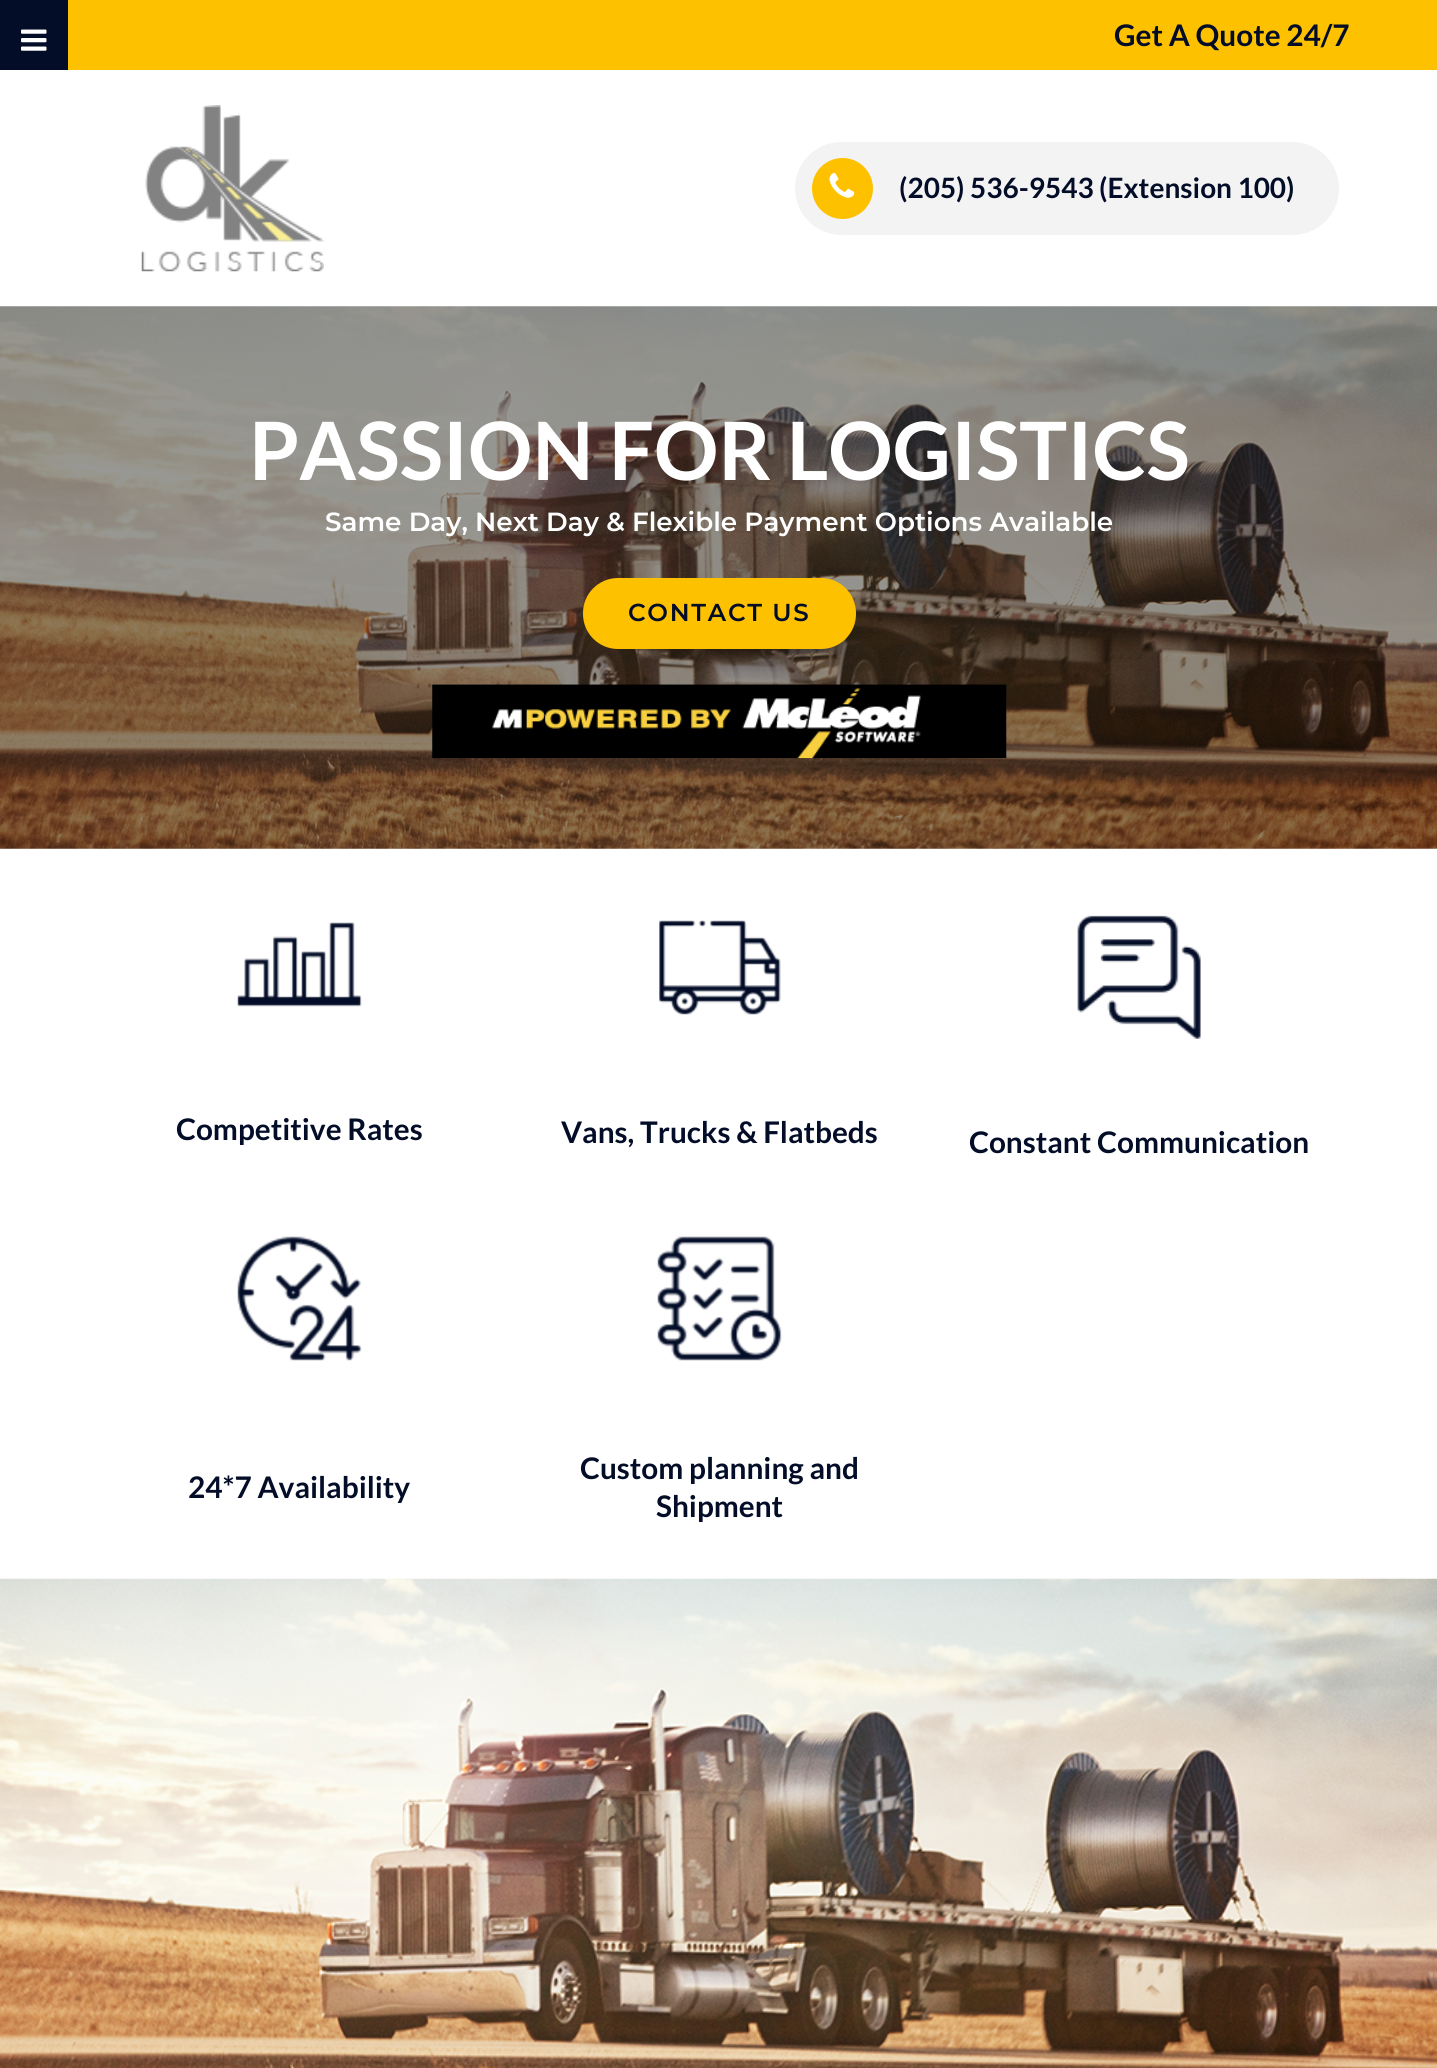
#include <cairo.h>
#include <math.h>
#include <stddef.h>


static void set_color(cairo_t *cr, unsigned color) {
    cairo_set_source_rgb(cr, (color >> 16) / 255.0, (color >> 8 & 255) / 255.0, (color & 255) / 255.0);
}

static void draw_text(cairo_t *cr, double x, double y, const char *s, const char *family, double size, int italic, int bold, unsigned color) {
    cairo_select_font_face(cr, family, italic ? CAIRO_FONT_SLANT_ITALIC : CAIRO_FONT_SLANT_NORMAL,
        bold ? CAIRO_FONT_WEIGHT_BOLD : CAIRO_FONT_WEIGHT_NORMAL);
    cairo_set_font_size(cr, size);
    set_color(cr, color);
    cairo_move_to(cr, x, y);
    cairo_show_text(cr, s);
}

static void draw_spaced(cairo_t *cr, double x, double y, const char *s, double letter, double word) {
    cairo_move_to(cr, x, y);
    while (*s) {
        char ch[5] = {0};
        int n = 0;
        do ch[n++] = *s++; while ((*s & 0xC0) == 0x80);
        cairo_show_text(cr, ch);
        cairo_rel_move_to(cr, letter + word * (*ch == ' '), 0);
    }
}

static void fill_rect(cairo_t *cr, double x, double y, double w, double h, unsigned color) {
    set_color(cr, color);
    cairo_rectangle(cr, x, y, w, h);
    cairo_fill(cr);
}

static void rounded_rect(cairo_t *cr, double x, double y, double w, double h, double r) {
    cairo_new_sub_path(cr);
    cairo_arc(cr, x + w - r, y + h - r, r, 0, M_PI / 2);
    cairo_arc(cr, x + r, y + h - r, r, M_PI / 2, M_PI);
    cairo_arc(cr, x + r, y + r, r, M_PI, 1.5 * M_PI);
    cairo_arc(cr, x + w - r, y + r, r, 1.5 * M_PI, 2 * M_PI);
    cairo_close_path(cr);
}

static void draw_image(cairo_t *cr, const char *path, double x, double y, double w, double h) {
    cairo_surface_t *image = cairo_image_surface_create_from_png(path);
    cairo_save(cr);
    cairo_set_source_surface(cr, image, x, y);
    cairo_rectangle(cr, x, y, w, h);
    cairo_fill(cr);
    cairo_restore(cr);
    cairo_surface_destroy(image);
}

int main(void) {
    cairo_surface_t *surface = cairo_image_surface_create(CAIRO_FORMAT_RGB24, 1437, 2068);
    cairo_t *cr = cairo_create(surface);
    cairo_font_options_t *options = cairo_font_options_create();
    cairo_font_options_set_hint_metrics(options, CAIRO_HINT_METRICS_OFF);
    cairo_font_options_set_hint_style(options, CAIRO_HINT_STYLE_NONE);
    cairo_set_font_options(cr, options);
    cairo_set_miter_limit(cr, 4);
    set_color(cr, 0xFFFFFF);
    cairo_paint(cr);
    fill_rect(cr, 0, 0, 68, 70, 0x030D27);
    draw_image(cr, "assets/img1.png", 21, 29, 26, 22);
    fill_rect(cr, 68, 0, 1369, 70, 0xFEC100);
    draw_text(cr, 1114, 46, "Get A Quote 24/7", "Lato", 29.75, 0, 1, 0x030D28);
    draw_image(cr, "assets/img2.png", 141, 105, 183, 167);
    set_color(cr, 0xF3F3F3);
    rounded_rect(cr, 795, 142, 544, 93, 46.5);
    cairo_fill(cr);
    set_color(cr, 0xFEC100);
    cairo_arc(cr, 842.5, 188.5, 30.5, 0, 2 * M_PI);
    cairo_fill(cr);
    draw_image(cr, "assets/img3.png", 829, 173, 26, 25);
    draw_text(cr, 899, 198, "(205) 536-9543 (Extension 100)", "Lato", 28, 0, 1, 0x030D28);
    draw_image(cr, "assets/img4.png", 0, 306, 1437, 543);
    draw_text(cr, 249, 480, "PASSION FOR LOGISTICS", "Lato", 80.5, 0, 1, 0xFFFFFF);
    draw_text(cr, 325, 531, "Same Day, Next Day & Flexible Payment Options Available", "Montserrat SemiBold", 26.25, 0, 0, 0xFFFFFF);
    set_color(cr, 0xFEC100);
    rounded_rect(cr, 583, 578, 273, 71, 35);
    cairo_fill(cr);
    cairo_set_font_size(cr, 24.5);
    set_color(cr, 0x030D28);
    draw_spaced(cr, 628, 621, "CONTACT US", 1.75, 0);
    draw_image(cr, "assets/img5.png", 432, 684, 575, 75);
    draw_image(cr, "assets/img6.png", 237, 922, 125, 85);
    draw_text(cr, 176, 1140, "Competitive Rates", "Lato", 29.75, 0, 1, 0x030D28);
    draw_image(cr, "assets/img7.png", 659, 920, 122, 95);
    draw_text(cr, 561, 1143, "Vans, Trucks & Flatbeds", "Lato", 29.75, 0, 1, 0x030D28);
    draw_image(cr, "assets/img8.png", 1077, 915, 124, 124);
    draw_text(cr, 969, 1153, "Constant Communication", "Lato", 29.75, 0, 1, 0x030D28);
    draw_image(cr, "assets/img9.png", 237, 1236, 125, 125);
    draw_text(cr, 188, 1498, "24*7 Availability", "Lato", 29.75, 0, 1, 0x030D28);
    draw_image(cr, "assets/img10.png", 657, 1236, 125, 125);
    draw_text(cr, 580, 1479, "Custom planning and", "Lato", 29.75, 0, 1, 0x030D28);
    draw_text(cr, 656, 1517, "Shipment", "Lato", 29.75, 0, 1, 0x030D28);
    draw_image(cr, "assets/img11.png", 0, 1578, 1437, 490);
    cairo_surface_write_to_png(surface, "output.png");
    cairo_font_options_destroy(options);
    cairo_destroy(cr);
    cairo_surface_destroy(surface);
    return 0;
}
